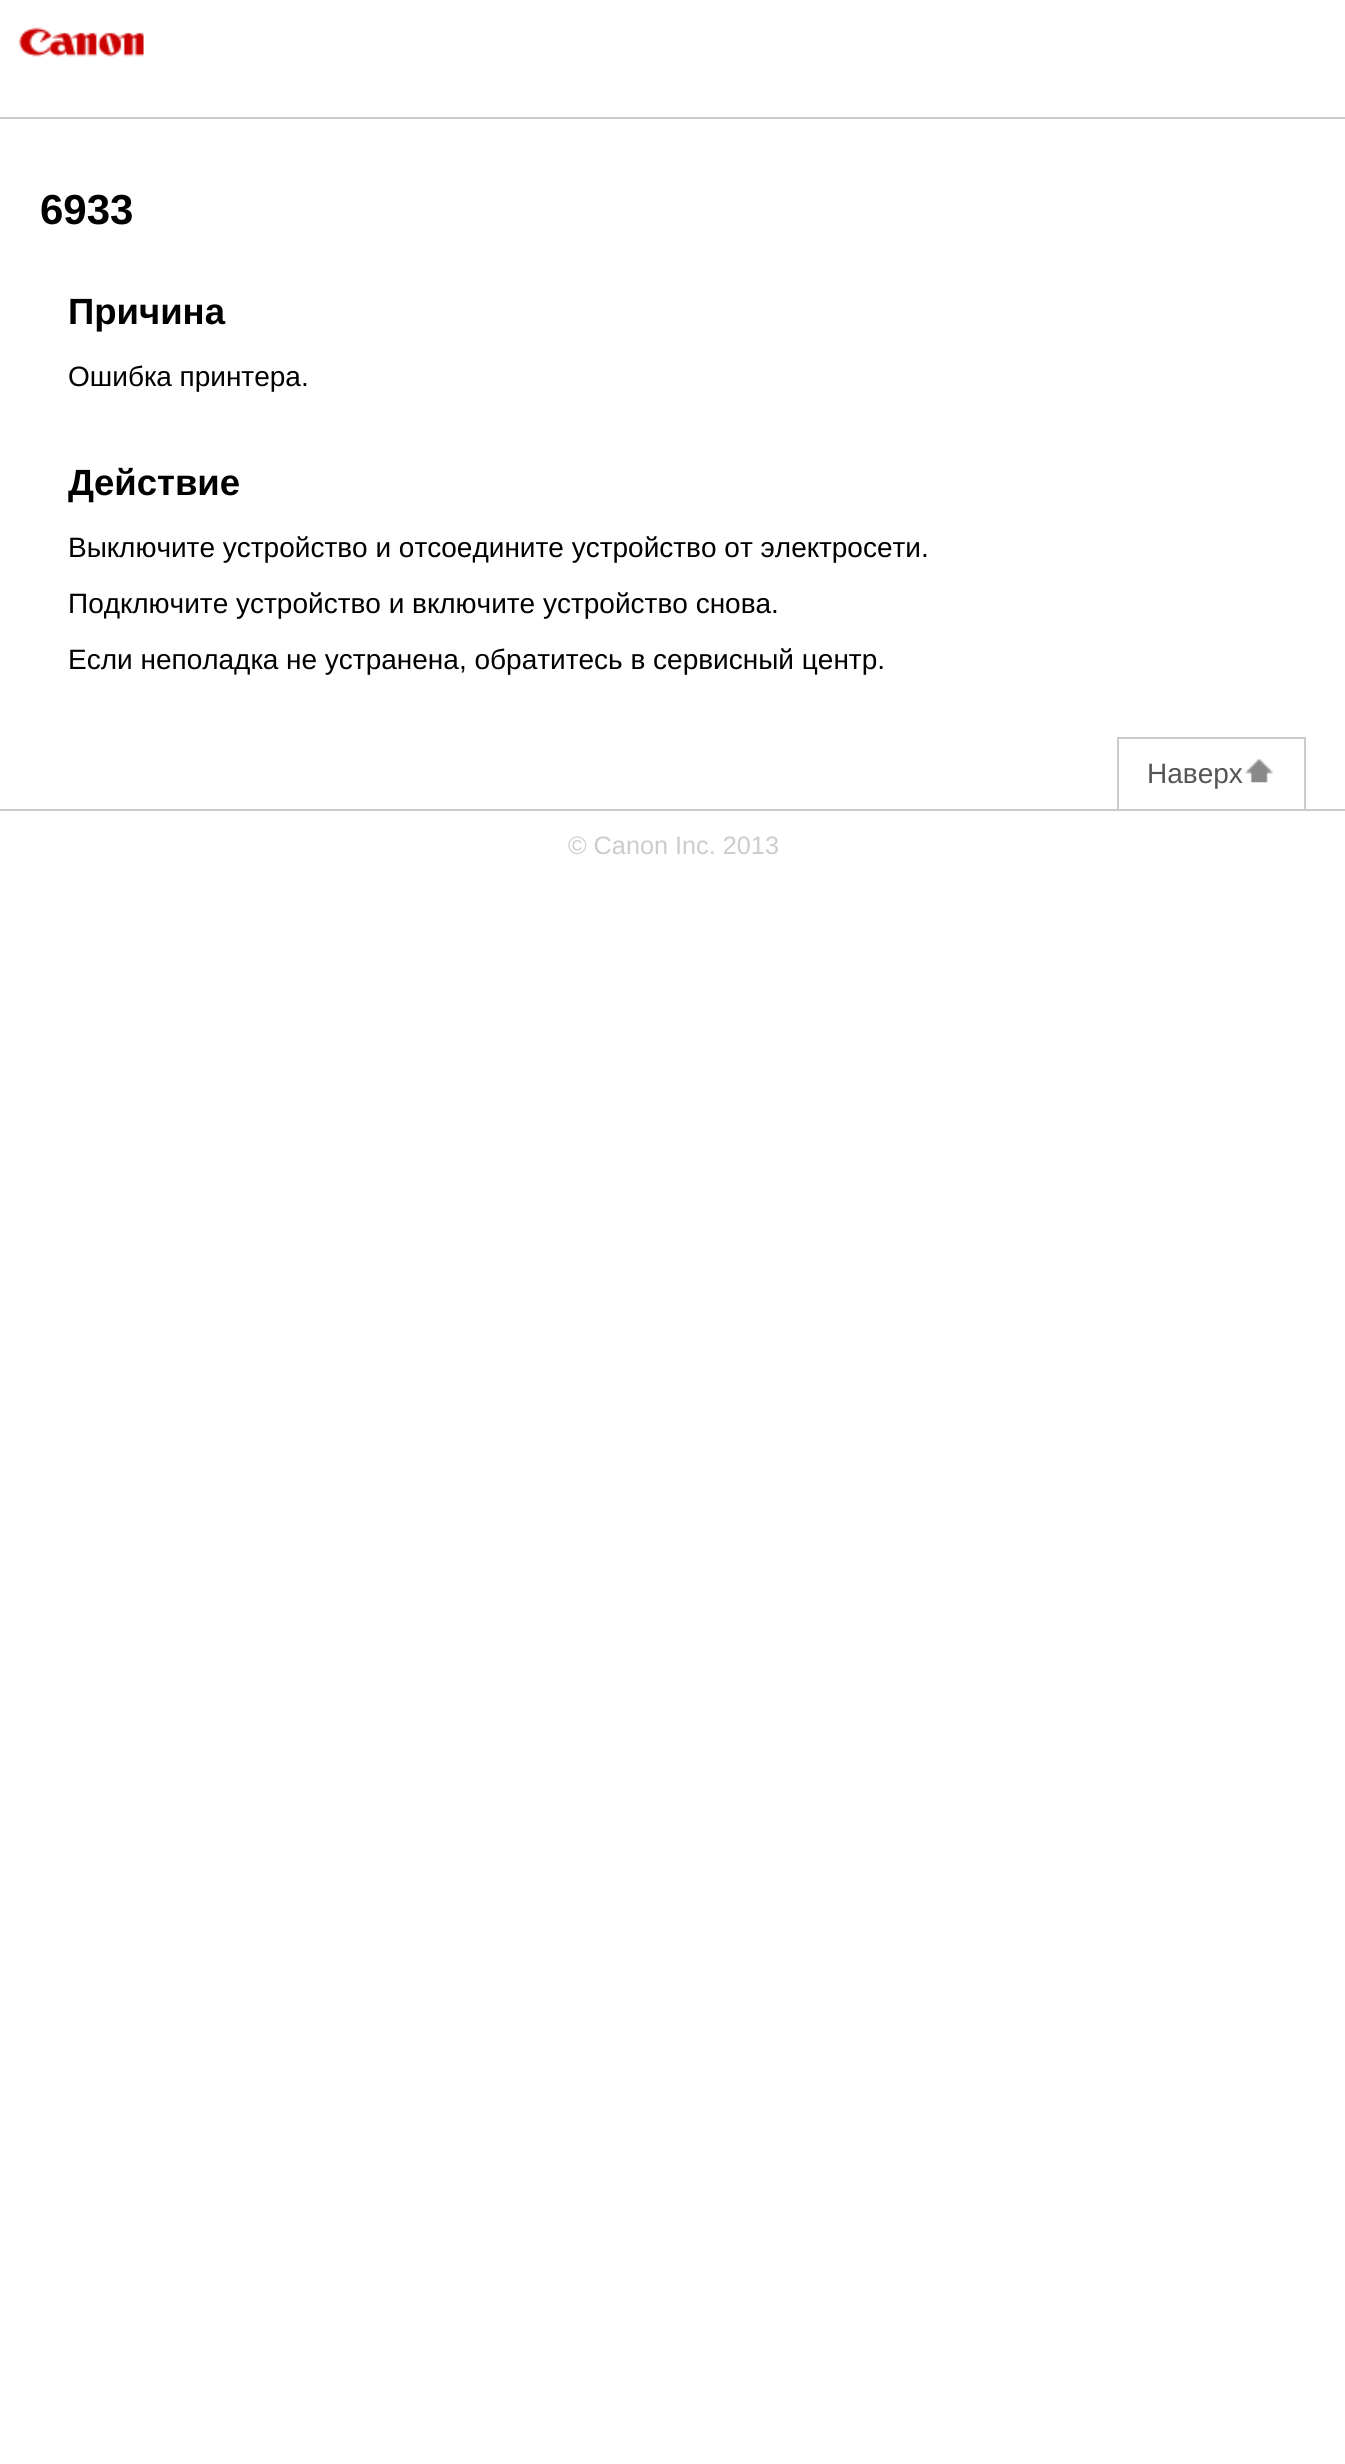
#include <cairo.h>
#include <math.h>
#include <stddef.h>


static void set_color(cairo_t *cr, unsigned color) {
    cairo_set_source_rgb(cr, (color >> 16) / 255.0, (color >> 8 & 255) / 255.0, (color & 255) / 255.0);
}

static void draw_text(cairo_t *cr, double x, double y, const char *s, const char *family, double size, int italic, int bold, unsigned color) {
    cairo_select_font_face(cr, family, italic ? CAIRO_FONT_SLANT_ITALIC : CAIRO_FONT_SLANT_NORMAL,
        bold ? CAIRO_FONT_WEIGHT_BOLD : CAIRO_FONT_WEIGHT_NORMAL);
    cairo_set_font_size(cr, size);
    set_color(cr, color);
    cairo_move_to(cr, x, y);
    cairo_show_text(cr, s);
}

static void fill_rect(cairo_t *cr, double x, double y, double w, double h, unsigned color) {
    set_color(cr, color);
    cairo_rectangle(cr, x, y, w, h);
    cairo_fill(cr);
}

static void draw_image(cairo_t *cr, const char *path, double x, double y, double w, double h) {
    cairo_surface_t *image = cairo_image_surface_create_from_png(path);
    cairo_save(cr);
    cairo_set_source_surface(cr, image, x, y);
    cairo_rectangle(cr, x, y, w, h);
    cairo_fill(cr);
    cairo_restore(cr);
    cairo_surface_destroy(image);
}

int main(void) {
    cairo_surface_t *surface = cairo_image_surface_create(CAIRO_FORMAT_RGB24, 1345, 2464);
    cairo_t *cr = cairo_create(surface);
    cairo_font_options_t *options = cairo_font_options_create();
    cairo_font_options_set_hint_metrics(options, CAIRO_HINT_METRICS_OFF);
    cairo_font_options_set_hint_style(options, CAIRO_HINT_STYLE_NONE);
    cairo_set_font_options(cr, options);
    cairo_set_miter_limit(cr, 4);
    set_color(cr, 0xFFFFFF);
    cairo_paint(cr);
    draw_image(cr, "assets/img1.png", 18, 27, 126, 30);
    fill_rect(cr, 0, 117, 1345, 2, 0xCCCCCC);
    draw_text(cr, 40, 224, "6933", "Liberation Sans", 42, 0, 1, 0x000000);
    draw_text(cr, 68, 324, "Причина", "Liberation Sans", 36.5, 0, 1, 0x000000);
    draw_text(cr, 68, 386, "Ошибка принтера.", "Liberation Sans", 28, 0, 0, 0x000000);
    draw_text(cr, 68, 495, "Действие", "Liberation Sans", 36.5, 0, 1, 0x000000);
    draw_text(cr, 68, 557, "Выключите устройство и отсоедините устройство от электросети.", "Liberation Sans", 28, 0, 0, 0x000000);
    draw_text(cr, 68, 613, "Подключите устройство и включите устройство снова.", "Liberation Sans", 28, 0, 0, 0x000000);
    draw_text(cr, 68, 669, "Если неполадка не устранена, обратитесь в сервисный центр.", "Liberation Sans", 28, 0, 0, 0x000000);
    fill_rect(cr, 0, 809, 1345, 2, 0xCCCCCC);
    fill_rect(cr, 1117, 737, 189, 2, 0xCCCCCC);
    fill_rect(cr, 1304, 737, 2, 72, 0xCCCCCC);
    fill_rect(cr, 1117, 737, 2, 72, 0xCCCCCC);
    draw_text(cr, 1147, 783, "Наверх", "Liberation Sans", 28, 0, 0, 0x555555);
    draw_image(cr, "assets/img2.png", 1244, 759, 30, 24);
    draw_text(cr, 568, 854, "© Canon Inc. 2013", "Liberation Sans", 25.25, 0, 0, 0xCCCCCC);
    cairo_surface_write_to_png(surface, "output.png");
    cairo_font_options_destroy(options);
    cairo_destroy(cr);
    cairo_surface_destroy(surface);
    return 0;
}
